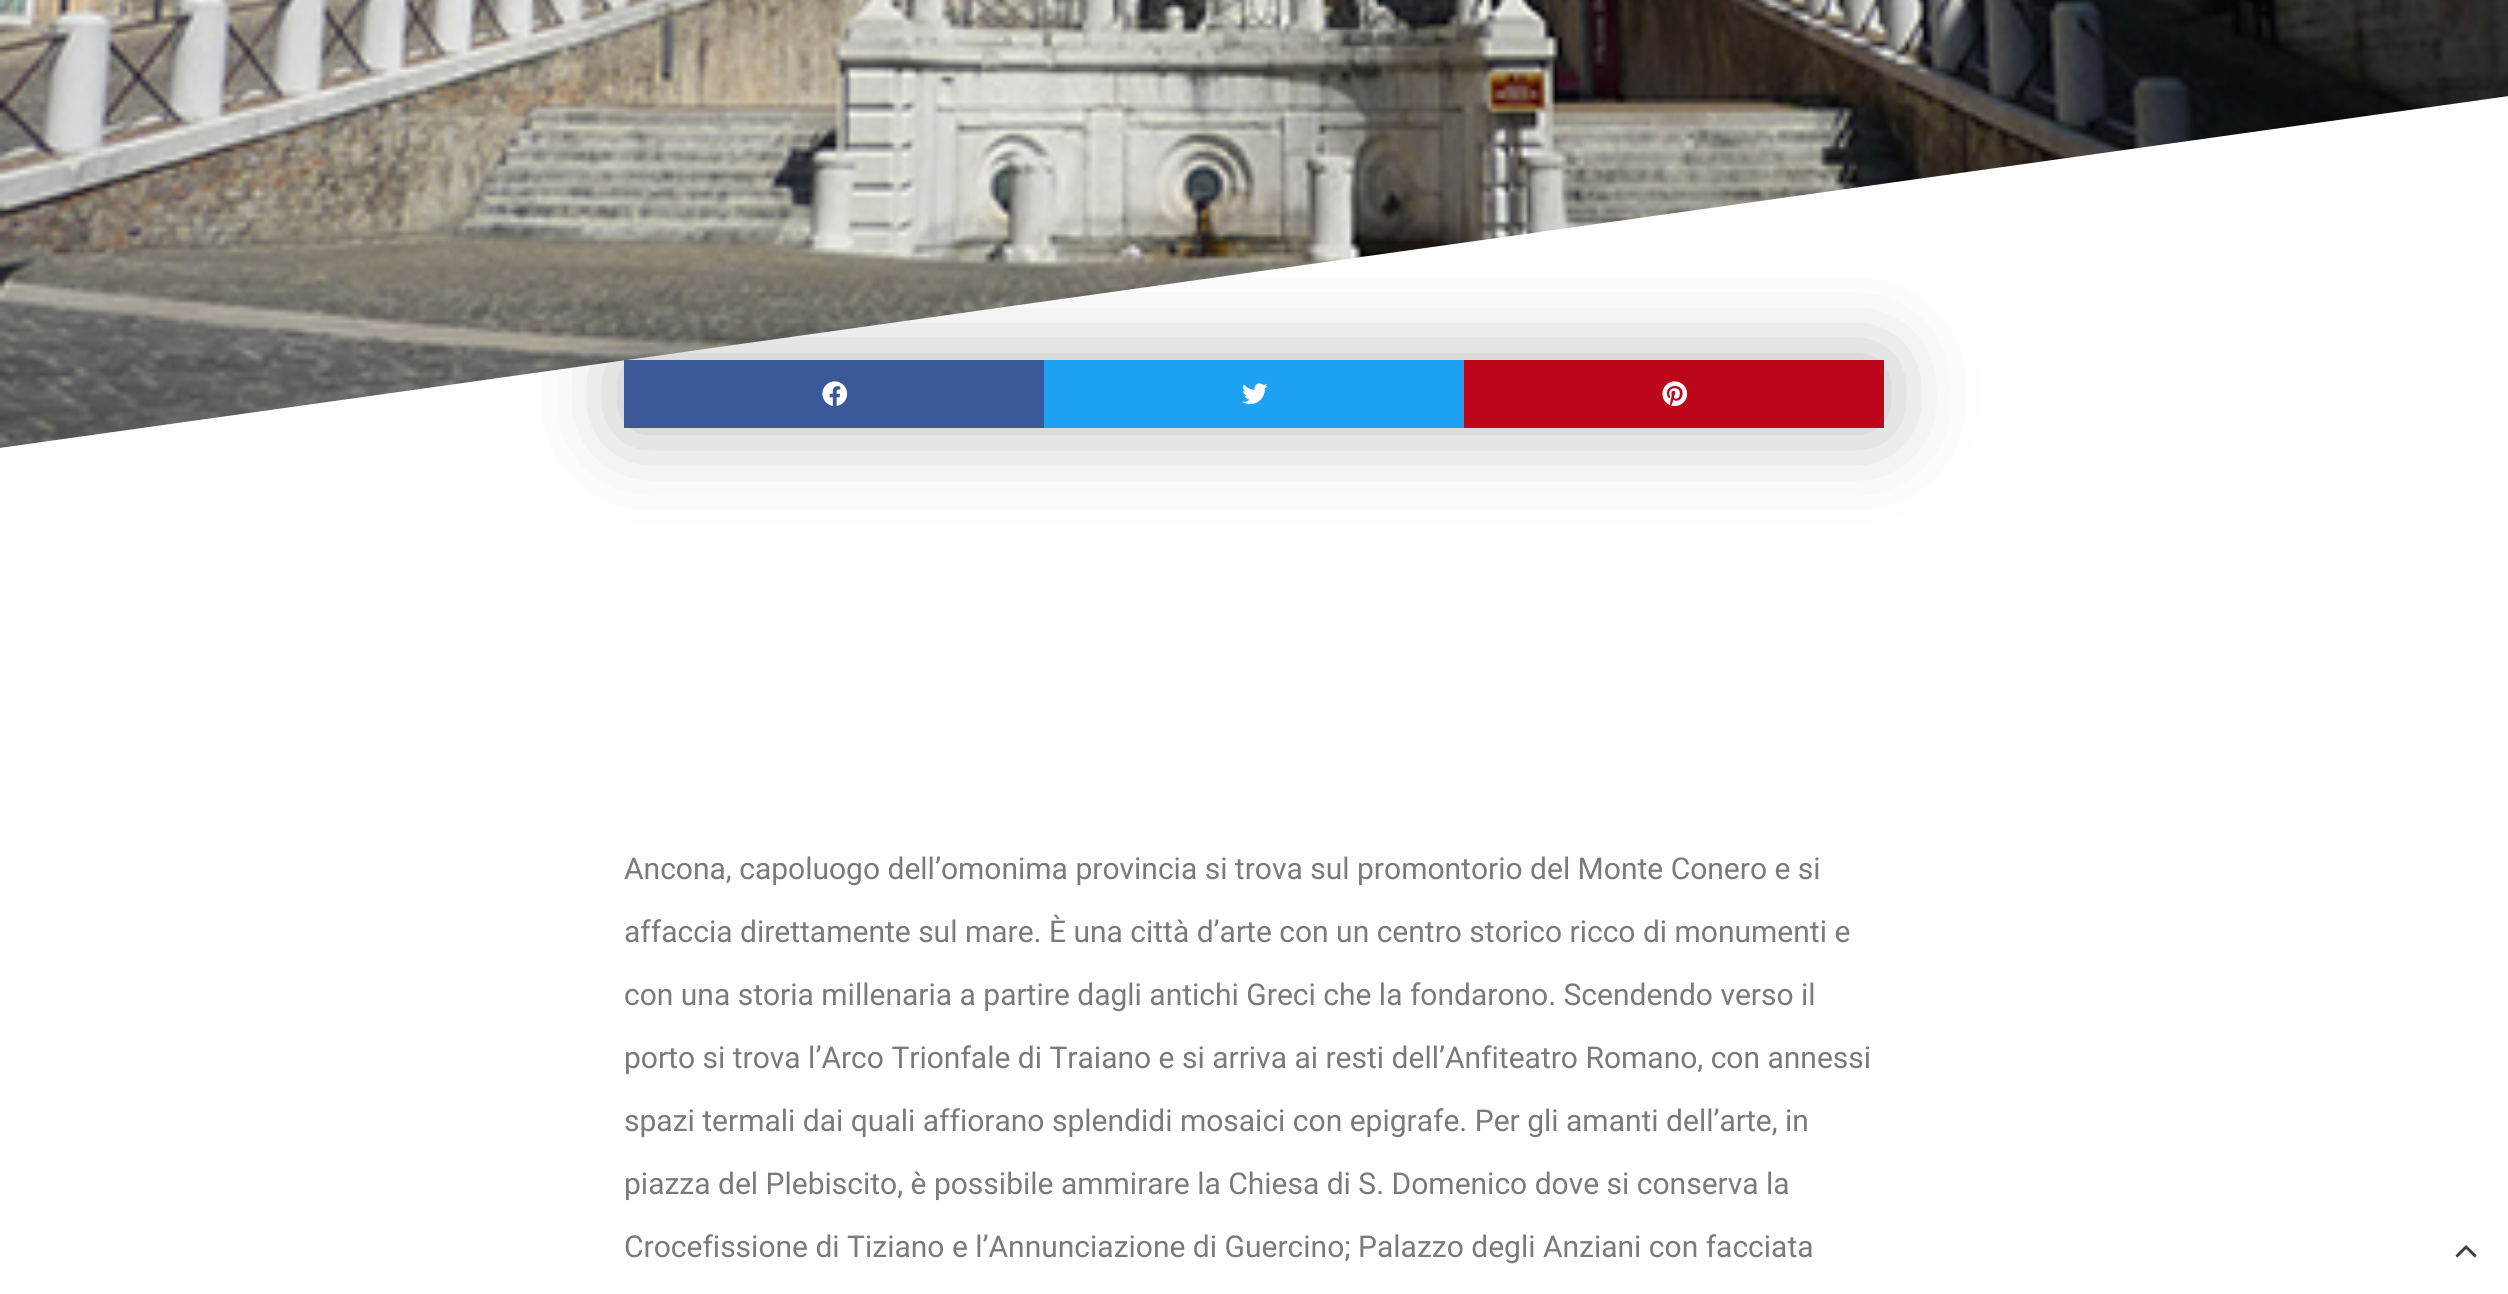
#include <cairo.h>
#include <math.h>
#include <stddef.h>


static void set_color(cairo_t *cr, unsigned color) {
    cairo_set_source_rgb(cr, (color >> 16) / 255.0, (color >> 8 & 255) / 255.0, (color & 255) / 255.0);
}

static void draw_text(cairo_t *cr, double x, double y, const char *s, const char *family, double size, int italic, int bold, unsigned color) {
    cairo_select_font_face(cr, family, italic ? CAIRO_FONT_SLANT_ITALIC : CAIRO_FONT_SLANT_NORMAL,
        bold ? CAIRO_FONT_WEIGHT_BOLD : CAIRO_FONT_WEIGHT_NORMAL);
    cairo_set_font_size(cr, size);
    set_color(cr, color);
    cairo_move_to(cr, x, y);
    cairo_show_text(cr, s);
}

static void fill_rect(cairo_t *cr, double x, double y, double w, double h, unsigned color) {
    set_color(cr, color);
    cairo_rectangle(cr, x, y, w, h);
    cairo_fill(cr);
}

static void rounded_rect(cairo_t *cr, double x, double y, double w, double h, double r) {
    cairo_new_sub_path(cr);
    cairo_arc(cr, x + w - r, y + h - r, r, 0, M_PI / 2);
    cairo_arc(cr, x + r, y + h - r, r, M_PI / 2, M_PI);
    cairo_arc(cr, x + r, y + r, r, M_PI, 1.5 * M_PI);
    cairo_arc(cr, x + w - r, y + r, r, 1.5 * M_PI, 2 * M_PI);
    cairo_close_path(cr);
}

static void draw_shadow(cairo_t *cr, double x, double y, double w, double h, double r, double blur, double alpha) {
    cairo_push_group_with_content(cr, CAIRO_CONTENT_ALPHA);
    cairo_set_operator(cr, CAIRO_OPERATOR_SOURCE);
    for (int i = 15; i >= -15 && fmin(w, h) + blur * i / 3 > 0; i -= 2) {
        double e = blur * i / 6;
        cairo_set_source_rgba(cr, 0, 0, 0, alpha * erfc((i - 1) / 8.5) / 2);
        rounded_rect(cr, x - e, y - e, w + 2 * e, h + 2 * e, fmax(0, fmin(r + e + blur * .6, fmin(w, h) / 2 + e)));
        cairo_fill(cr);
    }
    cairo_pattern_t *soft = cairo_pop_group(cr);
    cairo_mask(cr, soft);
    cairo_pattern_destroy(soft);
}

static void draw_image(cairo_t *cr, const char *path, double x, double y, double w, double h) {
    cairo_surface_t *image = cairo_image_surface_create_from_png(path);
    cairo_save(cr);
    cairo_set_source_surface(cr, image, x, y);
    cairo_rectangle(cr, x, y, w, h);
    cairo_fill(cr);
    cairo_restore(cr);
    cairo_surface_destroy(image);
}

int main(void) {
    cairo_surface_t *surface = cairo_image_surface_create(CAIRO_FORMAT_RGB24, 2508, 1294);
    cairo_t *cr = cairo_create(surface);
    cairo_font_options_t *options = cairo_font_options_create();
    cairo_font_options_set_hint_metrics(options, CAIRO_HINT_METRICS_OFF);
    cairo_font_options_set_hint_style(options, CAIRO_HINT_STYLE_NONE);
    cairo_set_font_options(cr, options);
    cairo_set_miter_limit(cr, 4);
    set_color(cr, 0xFFFFFF);
    cairo_paint(cr);
    draw_image(cr, "assets/img1.png", 0, 0, 2508, 448);
    set_color(cr, 0xFFFFFF);
    cairo_new_path(cr);
    cairo_move_to(cr, -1, 448);
    cairo_line_to(cr, -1, 471);
    cairo_line_to(cr, 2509, 471);
    cairo_line_to(cr, 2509, 96);
    cairo_close_path(cr);
    cairo_fill(cr);
    set_color(cr, 0x000000);
    draw_shadow(cr, 624, 360, 1260, 68, 0, 45, 0.28);
    fill_rect(cr, 624, 360, 420, 68, 0x3B5998);
    draw_image(cr, "assets/img2.png", 822, 381, 26, 25);
    fill_rect(cr, 1044, 360, 420, 68, 0x1DA1F2);
    draw_image(cr, "assets/img3.png", 1242, 383, 26, 22);
    fill_rect(cr, 1464, 360, 420, 68, 0xBD081C);
    draw_image(cr, "assets/img4.png", 1662, 381, 26, 26);
    draw_text(cr, 624, 879, "Ancona, capoluogo dell’omonima provincia si trova sul promontorio del Monte Conero e si", "Roboto", 30, 0, 0, 0x7A7A7A);
    draw_text(cr, 624, 942, "affaccia direttamente sul mare. È una città d’arte con un centro storico ricco di monumenti e", "Roboto", 30, 0, 0, 0x7A7A7A);
    draw_text(cr, 624, 1005, "con una storia millenaria a partire dagli antichi Greci che la fondarono. Scendendo verso il", "Roboto", 30, 0, 0, 0x7A7A7A);
    draw_text(cr, 624, 1068, "porto si trova l’Arco Trionfale di Traiano e si arriva ai resti dell’Anfiteatro Romano, con annessi", "Roboto", 30, 0, 0, 0x7A7A7A);
    draw_text(cr, 624, 1131, "spazi termali dai quali affiorano splendidi mosaici con epigrafe. Per gli amanti dell’arte, in", "Roboto", 30, 0, 0, 0x7A7A7A);
    draw_text(cr, 624, 1194, "piazza del Plebiscito, è possibile ammirare la Chiesa di S. Domenico dove si conserva la", "Roboto", 30, 0, 0, 0x7A7A7A);
    draw_text(cr, 624, 1257, "Crocefissione di Tiziano e l’Annunciazione di Guercino; Palazzo degli Anziani con facciata", "Roboto", 30, 0, 0, 0x7A7A7A);
    draw_image(cr, "assets/img5.png", 2455, 1245, 22, 13);
    cairo_surface_write_to_png(surface, "output.png");
    cairo_font_options_destroy(options);
    cairo_destroy(cr);
    cairo_surface_destroy(surface);
    return 0;
}
